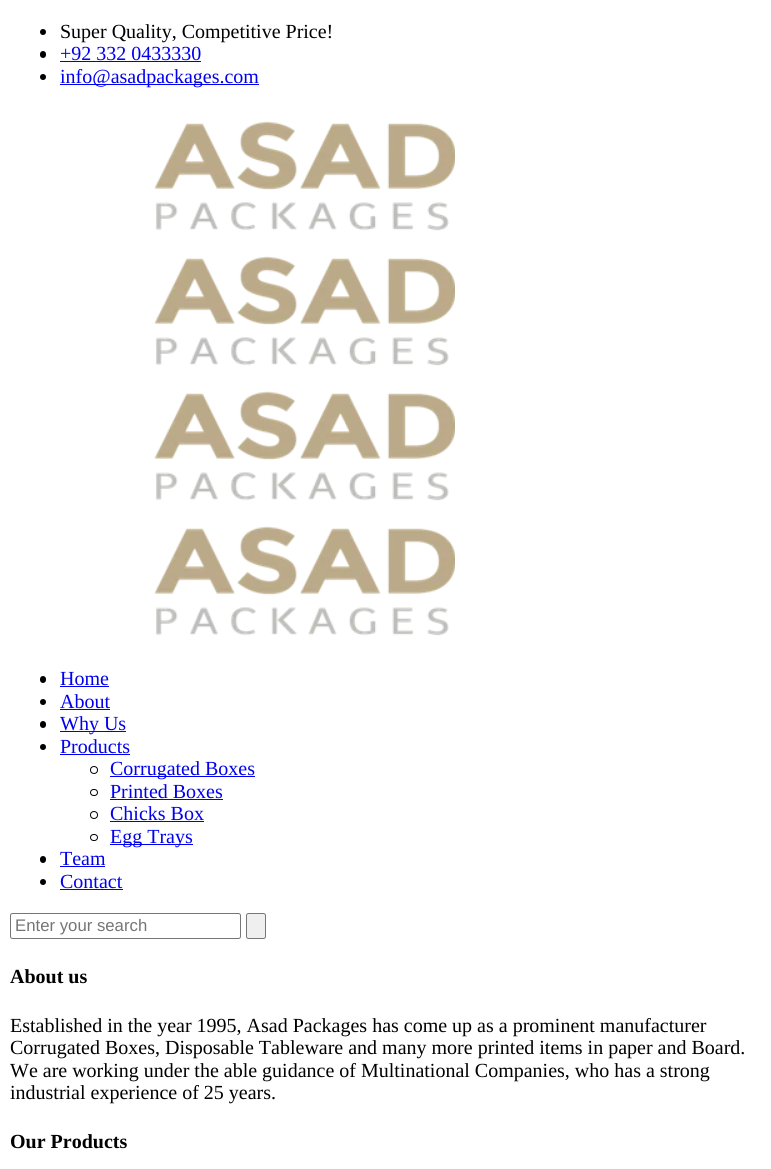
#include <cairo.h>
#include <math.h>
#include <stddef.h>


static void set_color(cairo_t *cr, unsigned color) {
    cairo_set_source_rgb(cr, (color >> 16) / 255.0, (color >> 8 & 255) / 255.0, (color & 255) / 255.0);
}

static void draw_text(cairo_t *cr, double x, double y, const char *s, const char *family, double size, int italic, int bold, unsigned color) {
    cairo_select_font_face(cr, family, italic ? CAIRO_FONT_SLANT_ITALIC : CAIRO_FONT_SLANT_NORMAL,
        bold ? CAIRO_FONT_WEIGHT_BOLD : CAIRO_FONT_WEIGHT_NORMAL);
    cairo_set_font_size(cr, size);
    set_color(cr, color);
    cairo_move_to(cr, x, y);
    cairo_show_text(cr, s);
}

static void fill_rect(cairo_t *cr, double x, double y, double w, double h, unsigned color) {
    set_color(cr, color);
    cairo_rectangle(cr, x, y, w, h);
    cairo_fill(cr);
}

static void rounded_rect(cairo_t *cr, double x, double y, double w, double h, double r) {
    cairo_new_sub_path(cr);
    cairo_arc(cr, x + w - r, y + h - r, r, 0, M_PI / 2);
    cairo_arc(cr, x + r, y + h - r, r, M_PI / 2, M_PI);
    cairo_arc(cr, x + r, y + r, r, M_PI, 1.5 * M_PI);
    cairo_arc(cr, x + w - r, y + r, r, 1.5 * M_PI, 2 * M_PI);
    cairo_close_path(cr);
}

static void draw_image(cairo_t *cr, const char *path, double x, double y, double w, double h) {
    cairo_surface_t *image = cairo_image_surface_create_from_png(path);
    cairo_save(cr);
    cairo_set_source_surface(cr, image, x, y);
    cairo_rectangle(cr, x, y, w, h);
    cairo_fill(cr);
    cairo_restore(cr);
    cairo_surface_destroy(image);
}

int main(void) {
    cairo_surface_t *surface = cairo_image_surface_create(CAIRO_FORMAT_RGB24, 771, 1169);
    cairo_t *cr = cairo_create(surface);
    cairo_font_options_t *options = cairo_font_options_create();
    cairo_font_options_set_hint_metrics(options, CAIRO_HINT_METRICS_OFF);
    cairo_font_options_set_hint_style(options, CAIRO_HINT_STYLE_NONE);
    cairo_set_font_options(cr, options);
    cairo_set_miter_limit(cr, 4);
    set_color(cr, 0xFFFFFF);
    cairo_paint(cr);
    set_color(cr, 0x000000);
    cairo_arc(cr, 43, 32, 3, 0, 2 * M_PI);
    cairo_fill(cr);
    draw_text(cr, 60, 38, "Super Quality, Competitive Price!", "Liberation Serif", 20, 0, 0, 0x000000);
    rounded_rect(cr, 40, 51, 6, 7, 3);
    cairo_fill(cr);
    draw_text(cr, 60, 60, "+92 332 0433330", "Liberation Serif", 20, 0, 0, 0x0000EE);
    fill_rect(cr, 60, 61, 141, 1, 0x0000EE);
    set_color(cr, 0x000000);
    cairo_new_path(cr);
    cairo_arc(cr, 43, 77, 3, 0, 2 * M_PI);
    cairo_fill(cr);
    fill_rect(cr, 60, 84, 199, 1, 0x0000EE);
    draw_text(cr, 60, 83, "info@asadpackages.com", "Liberation Serif", 20, 0, 0, 0x0000EE);
    draw_image(cr, "assets/img1.png", 154, 121, 301, 110);
    draw_image(cr, "assets/img1.png", 154, 256, 301, 110);
    draw_image(cr, "assets/img1.png", 154, 391, 301, 110);
    draw_image(cr, "assets/img1.png", 154, 526, 301, 110);
    set_color(cr, 0x000000);
    rounded_rect(cr, 40, 676, 6, 7, 3);
    cairo_fill(cr);
    draw_text(cr, 60, 685, "Home", "Liberation Serif", 20, 0, 0, 0x0000EE);
    fill_rect(cr, 60, 686, 49, 1, 0x0000EE);
    set_color(cr, 0x000000);
    cairo_new_path(cr);
    cairo_arc(cr, 43, 702, 3, 0, 2 * M_PI);
    cairo_fill(cr);
    draw_text(cr, 60, 708, "About", "Liberation Serif", 20, 0, 0, 0x0000EE);
    fill_rect(cr, 60, 709, 50, 1, 0x0000EE);
    set_color(cr, 0x000000);
    rounded_rect(cr, 40, 721, 6, 7, 3);
    cairo_fill(cr);
    fill_rect(cr, 60, 731, 66, 1, 0x0000EE);
    draw_text(cr, 60, 730, "Why Us", "Liberation Serif", 20, 0, 0, 0x0000EE);
    set_color(cr, 0x000000);
    cairo_new_path(cr);
    cairo_arc(cr, 43, 747, 3, 0, 2 * M_PI);
    cairo_fill(cr);
    draw_text(cr, 60, 753, "Products", "Liberation Serif", 20, 0, 0, 0x0000EE);
    fill_rect(cr, 60, 754, 70, 1, 0x0000EE);
    cairo_new_path(cr);
    cairo_arc(cr, 94, 770, 3.5, 0, 2 * M_PI);
    set_color(cr, 0x000000);
    cairo_set_line_width(cr, 1);
    cairo_stroke(cr);
    fill_rect(cr, 110, 776, 145, 1, 0x0000EE);
    draw_text(cr, 110, 775, "Corrugated Boxes", "Liberation Serif", 20, 0, 0, 0x0000EE);
    rounded_rect(cr, 90.5, 789.5, 7, 6, 3);
    set_color(cr, 0x000000);
    cairo_stroke(cr);
    draw_text(cr, 110, 798, "Printed Boxes", "Liberation Serif", 20, 0, 0, 0x0000EE);
    fill_rect(cr, 110, 799, 113, 1, 0x0000EE);
    cairo_new_path(cr);
    cairo_arc(cr, 94, 815, 3.5, 0, 2 * M_PI);
    set_color(cr, 0x000000);
    cairo_stroke(cr);
    draw_text(cr, 110, 820, "Chicks Box", "Liberation Serif", 20, 0, 0, 0x0000EE);
    fill_rect(cr, 110, 821, 94, 1, 0x0000EE);
    rounded_rect(cr, 90.5, 834.5, 7, 6, 3);
    set_color(cr, 0x000000);
    cairo_stroke(cr);
    fill_rect(cr, 110, 844, 83, 1, 0x0000EE);
    draw_text(cr, 110, 843, "Egg Trays", "Liberation Serif", 20, 0, 0, 0x0000EE);
    set_color(cr, 0x000000);
    rounded_rect(cr, 40, 856, 6, 7, 3);
    cairo_fill(cr);
    draw_text(cr, 60, 865, "Team", "Liberation Serif", 20, 0, 0, 0x0000EE);
    fill_rect(cr, 60, 866, 45, 1, 0x0000EE);
    set_color(cr, 0x000000);
    cairo_new_path(cr);
    cairo_arc(cr, 43, 882, 3, 0, 2 * M_PI);
    cairo_fill(cr);
    draw_text(cr, 60, 888, "Contact", "Liberation Serif", 20, 0, 0, 0x0000EE);
    fill_rect(cr, 60, 889, 63, 1, 0x0000EE);
    rounded_rect(cr, 10.5, 913.5, 230, 25, 2);
    set_color(cr, 0x767676);
    cairo_stroke(cr);
    draw_text(cr, 15, 931, "Enter your search", "Liberation Sans", 16.75, 0, 0, 0x757575);
    set_color(cr, 0xEFEFEF);
    rounded_rect(cr, 246.5, 913.5, 19, 25, 2);
    cairo_fill_preserve(cr);
    set_color(cr, 0x767676);
    cairo_stroke(cr);
    draw_text(cr, 10, 983, "About us", "Liberation Serif", 20, 0, 1, 0x000000);
    draw_text(cr, 10, 1032, "Established in the year 1995, Asad Packages has come up as a prominent manufacturer", "Liberation Serif", 20, 0, 0, 0x000000);
    draw_text(cr, 10, 1054, "Corrugated Boxes, Disposable Tableware and many more printed items in paper and Board.", "Liberation Serif", 20, 0, 0, 0x000000);
    draw_text(cr, 10, 1077, "We are working under the able guidance of Multinational Companies, who has a strong", "Liberation Serif", 20, 0, 0, 0x000000);
    draw_text(cr, 10, 1099, "industrial experience of 25 years.", "Liberation Serif", 20, 0, 0, 0x000000);
    draw_text(cr, 10, 1148, "Our Products", "Liberation Serif", 20, 0, 1, 0x000000);
    cairo_surface_write_to_png(surface, "output.png");
    cairo_font_options_destroy(options);
    cairo_destroy(cr);
    cairo_surface_destroy(surface);
    return 0;
}
